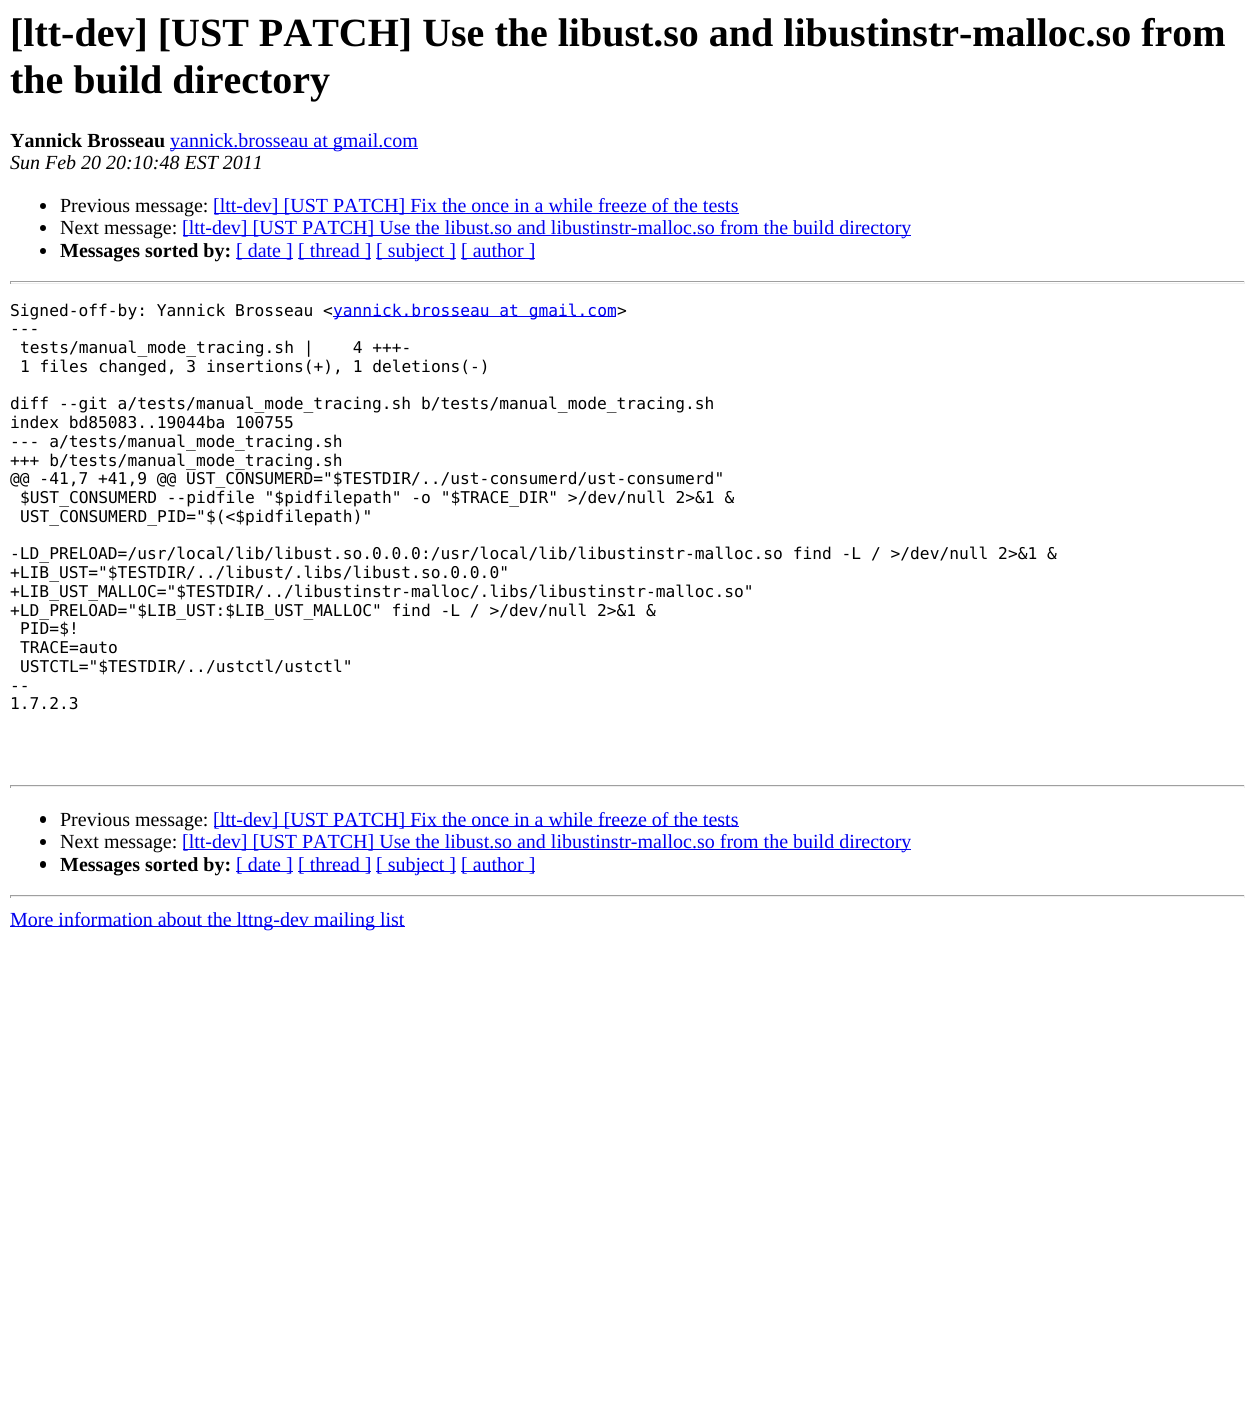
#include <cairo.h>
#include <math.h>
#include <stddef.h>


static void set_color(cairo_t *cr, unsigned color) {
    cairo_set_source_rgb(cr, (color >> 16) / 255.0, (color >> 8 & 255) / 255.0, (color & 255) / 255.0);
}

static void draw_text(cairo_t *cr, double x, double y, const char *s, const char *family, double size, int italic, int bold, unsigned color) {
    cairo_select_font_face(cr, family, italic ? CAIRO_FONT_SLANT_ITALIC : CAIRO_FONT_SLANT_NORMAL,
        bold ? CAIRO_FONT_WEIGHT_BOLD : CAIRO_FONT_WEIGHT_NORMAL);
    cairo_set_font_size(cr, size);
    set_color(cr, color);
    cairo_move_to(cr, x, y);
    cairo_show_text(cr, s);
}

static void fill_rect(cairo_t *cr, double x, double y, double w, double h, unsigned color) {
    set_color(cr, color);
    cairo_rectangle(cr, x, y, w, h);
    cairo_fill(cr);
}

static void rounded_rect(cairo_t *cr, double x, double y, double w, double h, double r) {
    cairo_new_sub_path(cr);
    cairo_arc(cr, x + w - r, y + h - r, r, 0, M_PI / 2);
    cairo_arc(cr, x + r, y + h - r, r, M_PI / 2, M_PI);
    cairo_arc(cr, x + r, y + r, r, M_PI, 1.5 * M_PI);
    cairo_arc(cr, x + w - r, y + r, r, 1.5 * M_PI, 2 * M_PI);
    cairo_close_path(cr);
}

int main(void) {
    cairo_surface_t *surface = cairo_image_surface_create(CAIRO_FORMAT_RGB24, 1254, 1410);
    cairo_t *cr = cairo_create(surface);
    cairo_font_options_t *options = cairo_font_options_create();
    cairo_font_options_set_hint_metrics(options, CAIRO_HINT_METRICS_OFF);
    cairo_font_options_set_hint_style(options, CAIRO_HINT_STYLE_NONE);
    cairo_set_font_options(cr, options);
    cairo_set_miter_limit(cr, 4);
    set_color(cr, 0xFFFFFF);
    cairo_paint(cr);
    draw_text(cr, 10, 46, "[ltt-dev] [UST PATCH] Use the libust.so and libustinstr-malloc.so from", "Liberation Serif", 40, 0, 1, 0x000000);
    draw_text(cr, 10, 93, "the build directory", "Liberation Serif", 40, 0, 1, 0x000000);
    draw_text(cr, 10, 147, "Yannick Brosseau", "Liberation Serif", 20, 0, 1, 0x000000);
    fill_rect(cr, 170, 148, 248, 1, 0x0000EE);
    draw_text(cr, 170, 147, "yannick.brosseau at gmail.com", "Liberation Serif", 20, 0, 0, 0x0000EE);
    draw_text(cr, 10, 169, "Sun Feb 20 20:10:48 EST 2011", "Liberation Serif", 20, 1, 0, 0x000000);
    cairo_new_path(cr);
    cairo_arc(cr, 43, 206, 3, 0, 2 * M_PI);
    cairo_fill(cr);
    draw_text(cr, 60, 212, "Previous message:", "Liberation Serif", 20, 0, 0, 0x000000);
    fill_rect(cr, 214, 213, 525, 1, 0x0000EE);
    draw_text(cr, 213, 212, "[ltt-dev] [UST PATCH] Fix the once in a while freeze of the tests", "Liberation Serif", 20, 0, 0, 0x0000EE);
    set_color(cr, 0x000000);
    cairo_new_path(cr);
    cairo_arc(cr, 43, 228, 3, 0, 2 * M_PI);
    cairo_fill(cr);
    draw_text(cr, 60, 234, "Next message:", "Liberation Serif", 20, 0, 0, 0x000000);
    fill_rect(cr, 183, 235, 728, 1, 0x0000EE);
    draw_text(cr, 182, 234, "[ltt-dev] [UST PATCH] Use the libust.so and libustinstr-malloc.so from the build directory", "Liberation Serif", 20, 0, 0, 0x0000EE);
    set_color(cr, 0x000000);
    cairo_new_path(cr);
    cairo_arc(cr, 43, 251, 3, 0, 2 * M_PI);
    cairo_fill(cr);
    draw_text(cr, 60, 257, "Messages sorted by:", "Liberation Serif", 20, 0, 1, 0x000000);
    fill_rect(cr, 236, 258, 57, 1, 0x0000EE);
    draw_text(cr, 236, 257, "[ date ]", "Liberation Serif", 20, 0, 0, 0x0000EE);
    fill_rect(cr, 298, 258, 73, 1, 0x0000EE);
    draw_text(cr, 298, 257, "[ thread ]", "Liberation Serif", 20, 0, 0, 0x0000EE);
    fill_rect(cr, 376, 258, 80, 1, 0x0000EE);
    draw_text(cr, 376, 257, "[ subject ]", "Liberation Serif", 20, 0, 0, 0x0000EE);
    fill_rect(cr, 461, 258, 74, 1, 0x0000EE);
    draw_text(cr, 461, 257, "[ author ]", "Liberation Serif", 20, 0, 0, 0x0000EE);
    fill_rect(cr, 10, 281, 1235, 1, 0x9F9F9F);
    fill_rect(cr, 1244, 281, 1, 3, 0xEEEEEE);
    fill_rect(cr, 10, 283, 1235, 1, 0xEEEEEE);
    fill_rect(cr, 10, 281, 1, 3, 0x9F9F9F);
    draw_text(cr, 10, 316, "Signed-off-by: Yannick Brosseau <", "DejaVu Sans Mono", 16.25, 0, 0, 0x000000);
    fill_rect(cr, 333, 316, 283, 1, 0x0000EE);
    draw_text(cr, 333, 316, "yannick.brosseau at gmail.com", "DejaVu Sans Mono", 16.25, 0, 0, 0x0000EE);
    draw_text(cr, 617, 316, ">", "DejaVu Sans Mono", 16.25, 0, 0, 0x000000);
    draw_text(cr, 10, 334, "---", "DejaVu Sans Mono", 16.25, 0, 0, 0x000000);
    draw_text(cr, 20, 353, "tests/manual_mode_tracing.sh |    4 +++-", "DejaVu Sans Mono", 16.25, 0, 0, 0x000000);
    draw_text(cr, 20, 372, "1 files changed, 3 insertions(+), 1 deletions(-)", "DejaVu Sans Mono", 16.25, 0, 0, 0x000000);
    draw_text(cr, 10, 409, "diff --git a/tests/manual_mode_tracing.sh b/tests/manual_mode_tracing.sh", "DejaVu Sans Mono", 16.25, 0, 0, 0x000000);
    draw_text(cr, 10, 428, "index bd85083..19044ba 100755", "DejaVu Sans Mono", 16.25, 0, 0, 0x000000);
    draw_text(cr, 10, 447, "--- a/tests/manual_mode_tracing.sh", "DejaVu Sans Mono", 16.25, 0, 0, 0x000000);
    draw_text(cr, 10, 466, "+++ b/tests/manual_mode_tracing.sh", "DejaVu Sans Mono", 16.25, 0, 0, 0x000000);
    draw_text(cr, 10, 484, "@@ -41,7 +41,9 @@ UST_CONSUMERD=\"$TESTDIR/../ust-consumerd/ust-consumerd\"", "DejaVu Sans Mono", 16.25, 0, 0, 0x000000);
    draw_text(cr, 20, 503, "$UST_CONSUMERD --pidfile \"$pidfilepath\" -o \"$TRACE_DIR\" >/dev/null 2>&1 &", "DejaVu Sans Mono", 16.25, 0, 0, 0x000000);
    draw_text(cr, 20, 522, "UST_CONSUMERD_PID=\"$(<$pidfilepath)\"", "DejaVu Sans Mono", 16.25, 0, 0, 0x000000);
    draw_text(cr, 10, 559, "-LD_PRELOAD=/usr/local/lib/libust.so.0.0.0:/usr/local/lib/libustinstr-malloc.so find -L / >/dev/null 2>&1 &", "DejaVu Sans Mono", 16.25, 0, 0, 0x000000);
    draw_text(cr, 10, 578, "+LIB_UST=\"$TESTDIR/../libust/.libs/libust.so.0.0.0\"", "DejaVu Sans Mono", 16.25, 0, 0, 0x000000);
    draw_text(cr, 10, 597, "+LIB_UST_MALLOC=\"$TESTDIR/../libustinstr-malloc/.libs/libustinstr-malloc.so\"", "DejaVu Sans Mono", 16.25, 0, 0, 0x000000);
    draw_text(cr, 10, 616, "+LD_PRELOAD=\"$LIB_UST:$LIB_UST_MALLOC\" find -L / >/dev/null 2>&1 &", "DejaVu Sans Mono", 16.25, 0, 0, 0x000000);
    draw_text(cr, 20, 634, "PID=$!", "DejaVu Sans Mono", 16.25, 0, 0, 0x000000);
    draw_text(cr, 20, 653, "TRACE=auto", "DejaVu Sans Mono", 16.25, 0, 0, 0x000000);
    draw_text(cr, 20, 672, "USTCTL=\"$TESTDIR/../ustctl/ustctl\"", "DejaVu Sans Mono", 16.25, 0, 0, 0x000000);
    draw_text(cr, 10, 691, "--", "DejaVu Sans Mono", 16.25, 0, 0, 0x000000);
    draw_text(cr, 10, 709, "1.7.2.3", "DejaVu Sans Mono", 16.25, 0, 0, 0x000000);
    fill_rect(cr, 10, 785, 1235, 1, 0x9F9F9F);
    fill_rect(cr, 1244, 785, 1, 3, 0xEEEEEE);
    fill_rect(cr, 10, 786, 1235, 1, 0xEEEEEE);
    fill_rect(cr, 10, 785, 1, 3, 0x9F9F9F);
    set_color(cr, 0x000000);
    rounded_rect(cr, 40, 816, 6, 7, 3);
    cairo_fill(cr);
    draw_text(cr, 60, 826, "Previous message:", "Liberation Serif", 20, 0, 0, 0x000000);
    fill_rect(cr, 214, 826, 525, 1, 0x0000EE);
    draw_text(cr, 213, 826, "[ltt-dev] [UST PATCH] Fix the once in a while freeze of the tests", "Liberation Serif", 20, 0, 0, 0x0000EE);
    set_color(cr, 0x000000);
    cairo_new_path(cr);
    cairo_arc(cr, 43, 842, 3, 0, 2 * M_PI);
    cairo_fill(cr);
    draw_text(cr, 60, 848, "Next message:", "Liberation Serif", 20, 0, 0, 0x000000);
    fill_rect(cr, 183, 849, 728, 1, 0x0000EE);
    draw_text(cr, 182, 848, "[ltt-dev] [UST PATCH] Use the libust.so and libustinstr-malloc.so from the build directory", "Liberation Serif", 20, 0, 0, 0x0000EE);
    set_color(cr, 0x000000);
    rounded_rect(cr, 40, 861, 6, 7, 3);
    cairo_fill(cr);
    draw_text(cr, 60, 871, "Messages sorted by:", "Liberation Serif", 20, 0, 1, 0x000000);
    fill_rect(cr, 236, 871, 57, 1, 0x0000EE);
    draw_text(cr, 236, 871, "[ date ]", "Liberation Serif", 20, 0, 0, 0x0000EE);
    fill_rect(cr, 298, 871, 73, 1, 0x0000EE);
    draw_text(cr, 298, 871, "[ thread ]", "Liberation Serif", 20, 0, 0, 0x0000EE);
    fill_rect(cr, 376, 871, 80, 1, 0x0000EE);
    draw_text(cr, 376, 871, "[ subject ]", "Liberation Serif", 20, 0, 0, 0x0000EE);
    fill_rect(cr, 461, 871, 74, 1, 0x0000EE);
    draw_text(cr, 461, 871, "[ author ]", "Liberation Serif", 20, 0, 0, 0x0000EE);
    fill_rect(cr, 10, 895, 1235, 1, 0x9F9F9F);
    fill_rect(cr, 1244, 895, 1, 3, 0xEEEEEE);
    fill_rect(cr, 10, 896, 1235, 1, 0xEEEEEE);
    fill_rect(cr, 10, 895, 1, 3, 0x9F9F9F);
    fill_rect(cr, 10, 926, 395, 1, 0x0000EE);
    draw_text(cr, 10, 926, "More information about the lttng-dev mailing list", "Liberation Serif", 20, 0, 0, 0x0000EE);
    cairo_surface_write_to_png(surface, "output.png");
    cairo_font_options_destroy(options);
    cairo_destroy(cr);
    cairo_surface_destroy(surface);
    return 0;
}
